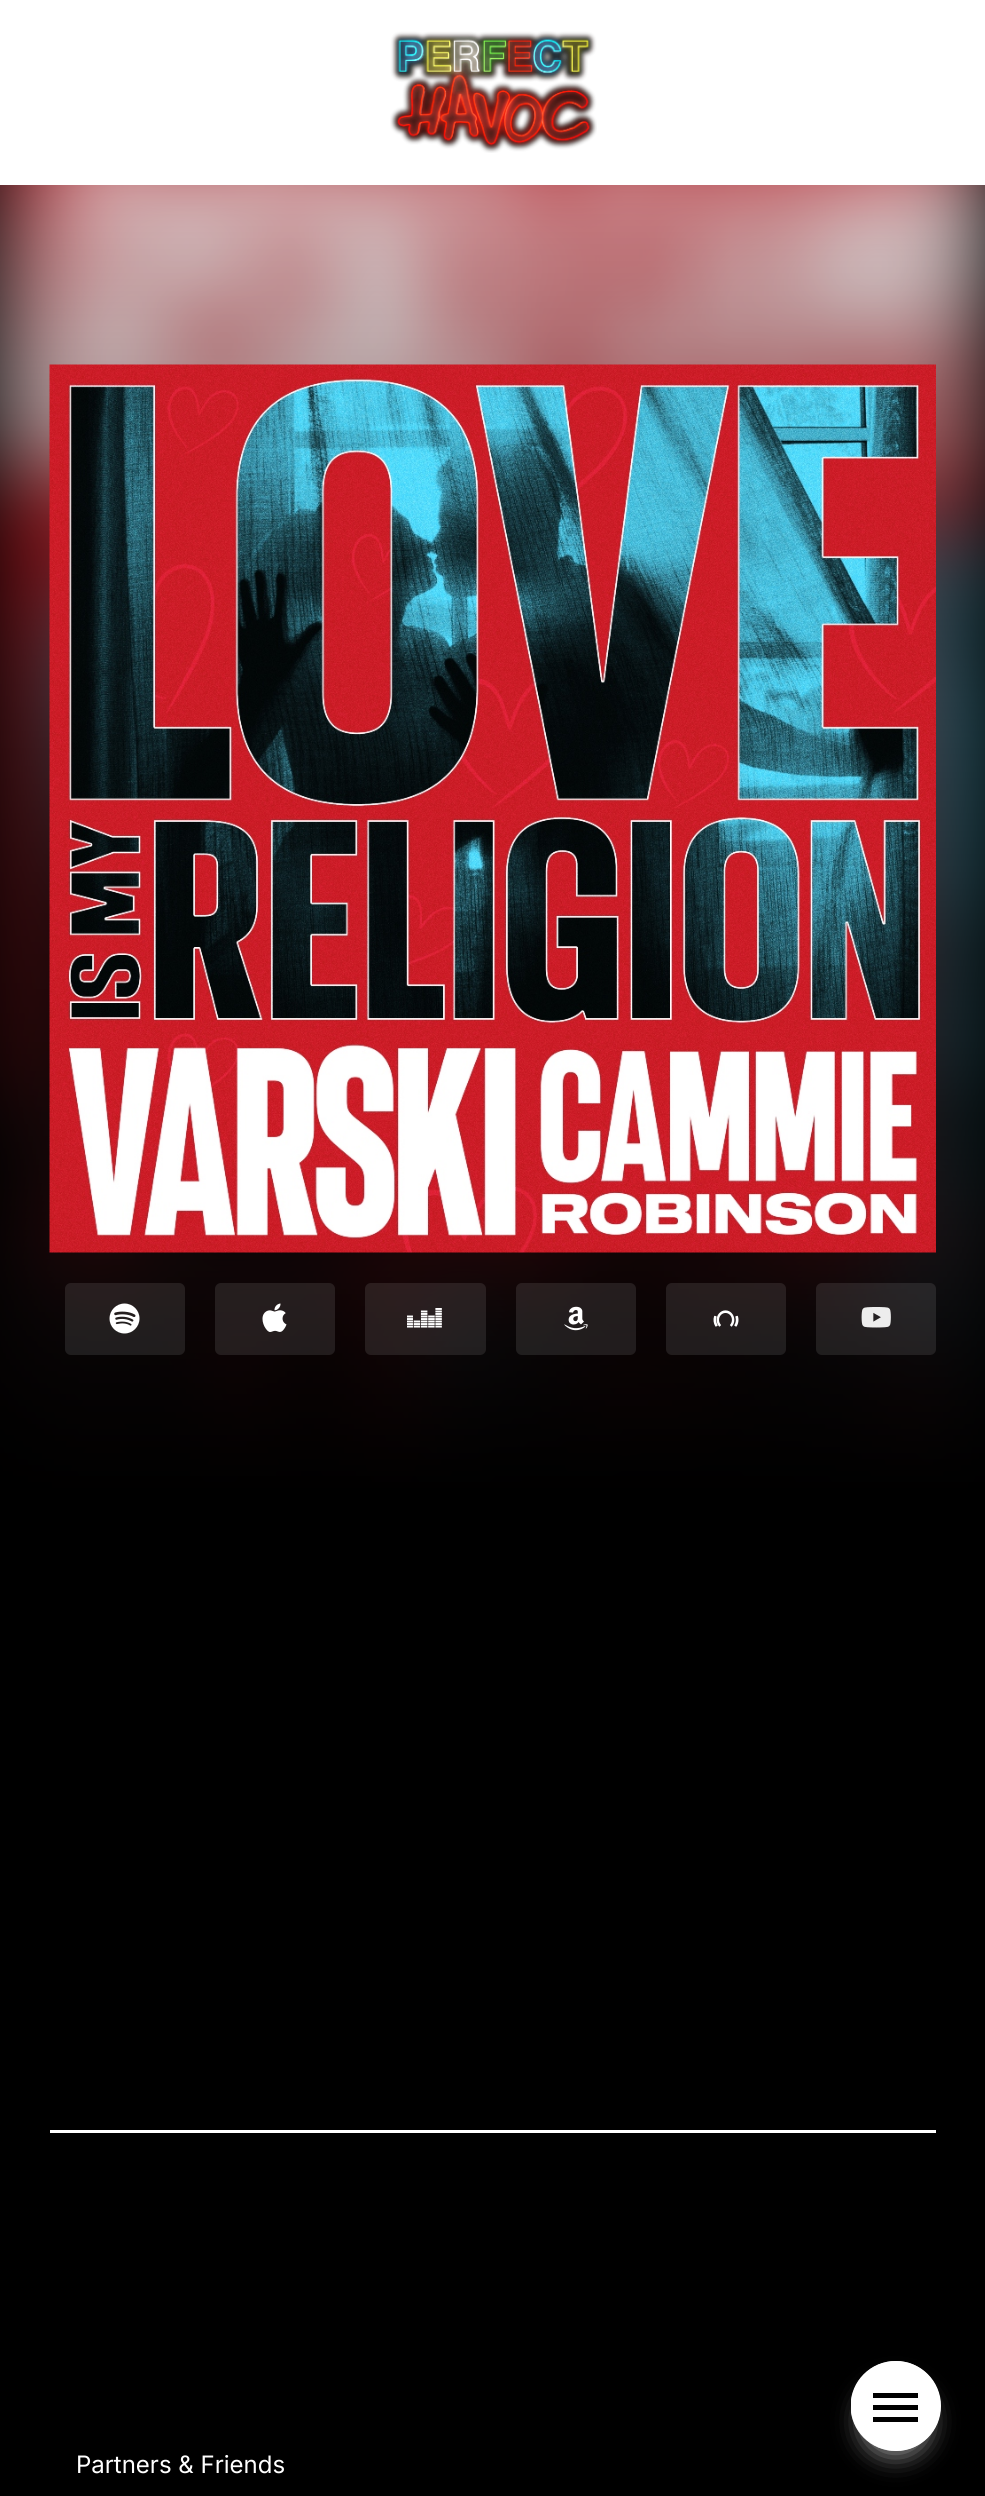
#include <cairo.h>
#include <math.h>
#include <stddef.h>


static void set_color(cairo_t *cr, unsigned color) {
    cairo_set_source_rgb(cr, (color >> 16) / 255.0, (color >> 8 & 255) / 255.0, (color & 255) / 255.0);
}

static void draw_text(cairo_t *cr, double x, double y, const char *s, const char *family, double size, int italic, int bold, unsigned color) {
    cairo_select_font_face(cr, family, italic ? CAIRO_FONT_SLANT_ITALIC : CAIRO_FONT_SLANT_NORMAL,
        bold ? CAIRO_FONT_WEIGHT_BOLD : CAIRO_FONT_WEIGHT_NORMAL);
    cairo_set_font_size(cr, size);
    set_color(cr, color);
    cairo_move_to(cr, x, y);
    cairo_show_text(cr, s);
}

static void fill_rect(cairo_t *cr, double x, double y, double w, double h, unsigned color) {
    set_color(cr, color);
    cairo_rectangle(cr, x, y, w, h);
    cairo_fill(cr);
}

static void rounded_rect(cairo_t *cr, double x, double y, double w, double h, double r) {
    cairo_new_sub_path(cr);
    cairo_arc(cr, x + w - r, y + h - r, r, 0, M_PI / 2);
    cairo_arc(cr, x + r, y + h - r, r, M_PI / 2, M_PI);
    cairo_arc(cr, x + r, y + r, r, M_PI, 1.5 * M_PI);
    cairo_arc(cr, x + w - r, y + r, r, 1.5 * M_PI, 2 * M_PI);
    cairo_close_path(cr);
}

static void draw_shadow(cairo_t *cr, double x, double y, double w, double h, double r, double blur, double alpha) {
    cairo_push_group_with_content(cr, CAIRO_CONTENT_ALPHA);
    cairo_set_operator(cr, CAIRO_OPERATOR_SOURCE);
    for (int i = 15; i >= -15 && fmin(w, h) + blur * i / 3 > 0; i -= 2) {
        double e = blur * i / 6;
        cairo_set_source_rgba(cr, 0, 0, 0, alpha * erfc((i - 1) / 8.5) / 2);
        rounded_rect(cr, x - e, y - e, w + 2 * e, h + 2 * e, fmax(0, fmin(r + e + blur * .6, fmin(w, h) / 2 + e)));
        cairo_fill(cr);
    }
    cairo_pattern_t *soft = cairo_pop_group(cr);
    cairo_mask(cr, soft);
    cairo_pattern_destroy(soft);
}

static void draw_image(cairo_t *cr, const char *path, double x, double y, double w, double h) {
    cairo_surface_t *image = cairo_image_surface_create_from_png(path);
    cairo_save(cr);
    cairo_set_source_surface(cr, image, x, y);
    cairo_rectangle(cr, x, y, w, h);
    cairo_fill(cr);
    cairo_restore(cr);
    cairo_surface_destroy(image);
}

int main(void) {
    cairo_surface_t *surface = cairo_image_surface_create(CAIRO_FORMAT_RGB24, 985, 2496);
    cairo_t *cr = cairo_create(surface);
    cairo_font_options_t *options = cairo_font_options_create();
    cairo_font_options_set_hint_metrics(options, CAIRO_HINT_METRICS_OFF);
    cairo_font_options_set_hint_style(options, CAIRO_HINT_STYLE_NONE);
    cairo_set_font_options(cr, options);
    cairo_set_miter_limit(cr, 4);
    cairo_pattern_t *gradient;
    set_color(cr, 0x000000);
    cairo_paint(cr);
    fill_rect(cr, 0, 0, 985, 185, 0xFFFFFF);
    draw_image(cr, "assets/img1.png", 390, 31, 207, 122);
    draw_image(cr, "assets/img2.png", 0, 185, 985, 1303);
    gradient = cairo_pattern_create_linear(493, 1497, 493, 0);
    cairo_pattern_add_color_stop_rgba(gradient, 0, 0, 0, 0, 1);
    cairo_pattern_add_color_stop_rgba(gradient, 1, 0, 0, 0, 0);
    cairo_set_source(cr, gradient);
    cairo_pattern_destroy(gradient);
    cairo_rectangle(cr, 0, 185, 985, 1303);
    cairo_fill(cr);
    draw_image(cr, "assets/img3.png", 49, 364, 887, 889);
    cairo_set_source_rgba(cr, 1, 1, 1, 0.1);
    rounded_rect(cr, 65, 1283, 120, 72, 6);
    cairo_fill(cr);
    draw_image(cr, "assets/img4.png", 109, 1303, 31, 31);
    rounded_rect(cr, 215, 1283, 120, 72, 6);
    cairo_fill(cr);
    draw_image(cr, "assets/img5.png", 262, 1303, 25, 29);
    rounded_rect(cr, 365, 1283, 121, 72, 6);
    cairo_fill(cr);
    draw_image(cr, "assets/img6.png", 407, 1308, 35, 20);
    rounded_rect(cr, 516, 1283, 120, 72, 6);
    cairo_fill(cr);
    draw_image(cr, "assets/img7.png", 564, 1306, 24, 25);
    rounded_rect(cr, 666, 1283, 120, 72, 6);
    cairo_fill(cr);
    draw_image(cr, "assets/img8.png", 713, 1310, 26, 17);
    rounded_rect(cr, 816, 1283, 120, 72, 6);
    cairo_fill(cr);
    draw_image(cr, "assets/img9.png", 861, 1307, 30, 21);
    fill_rect(cr, 50, 2130, 886, 3, 0xFFFFFF);
    draw_text(cr, 76, 2473, "Partners & Friends", "Inter", 24, 0, 0, 0xFFFFFF);
    cairo_save(cr);
    cairo_rectangle(cr, 851, 2361, 90, 90);
    cairo_clip(cr);
    cairo_arc(cr, 895.5, 2406, 45, 0, 2 * M_PI);
    cairo_fill(cr);
    cairo_restore(cr);
    set_color(cr, 0xAFAFAF);
    draw_shadow(cr, 864, 2390, 63, 63, 31.5, 13.5, 1);
    set_color(cr, 0xFFFFFF);
    cairo_arc(cr, 896, 2406, 45, 0, 2 * M_PI);
    cairo_fill(cr);
    fill_rect(cr, 873, 2393, 45, 5, 0x000000);
    fill_rect(cr, 873, 2405, 45, 5, 0x000000);
    fill_rect(cr, 873, 2417, 45, 5, 0x000000);
    cairo_surface_write_to_png(surface, "output.png");
    cairo_font_options_destroy(options);
    cairo_destroy(cr);
    cairo_surface_destroy(surface);
    return 0;
}
